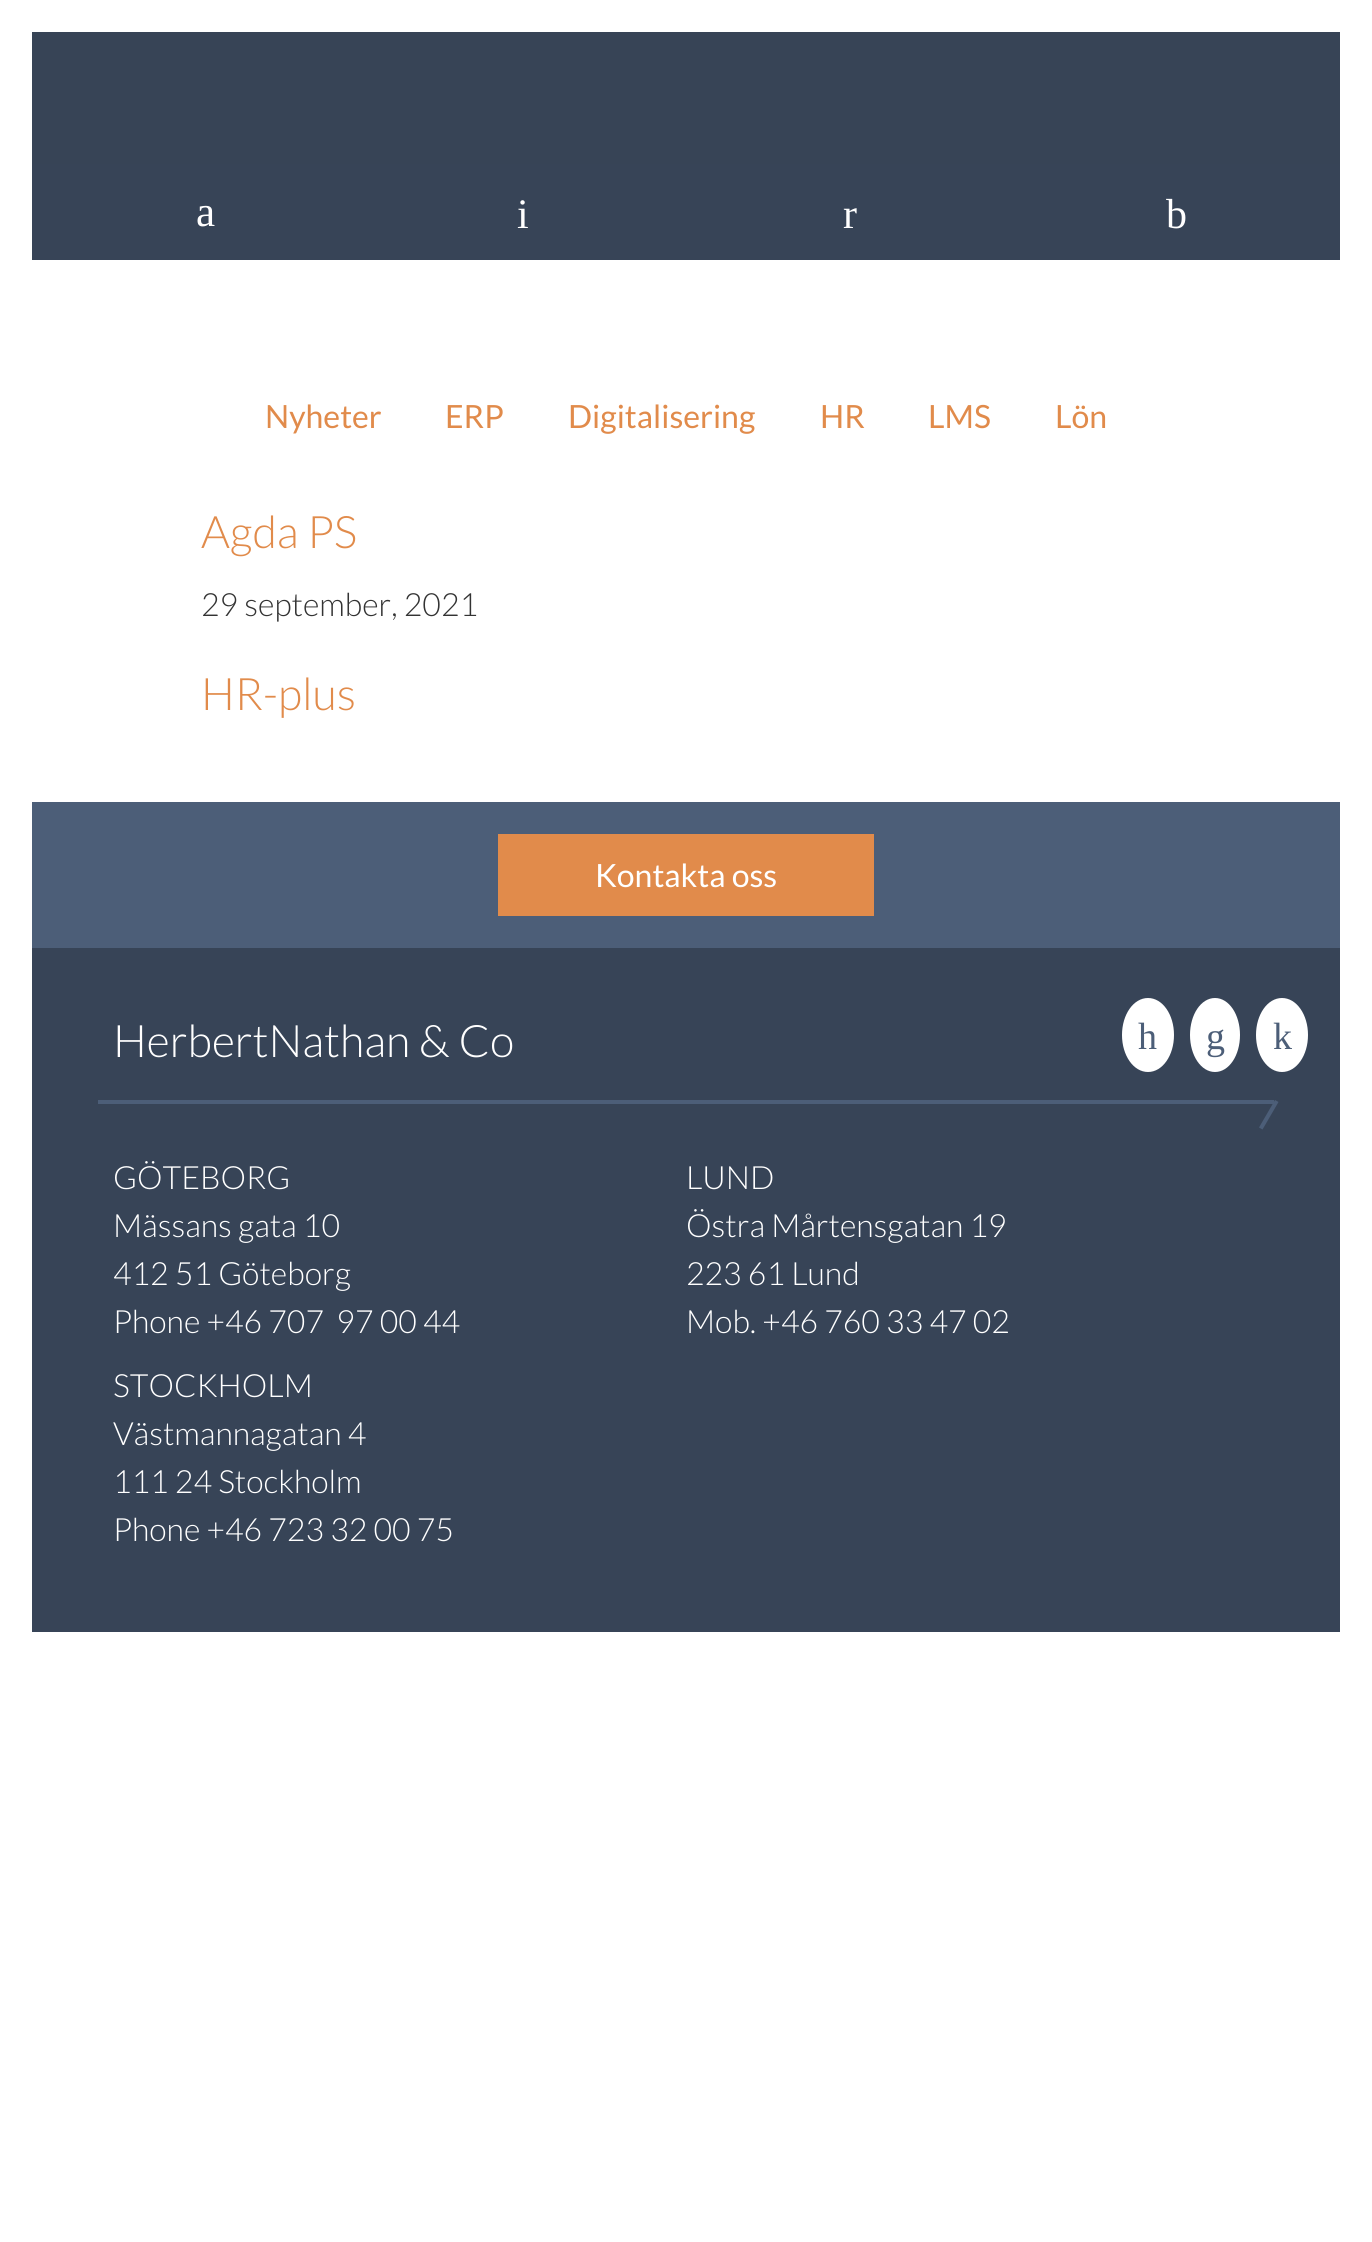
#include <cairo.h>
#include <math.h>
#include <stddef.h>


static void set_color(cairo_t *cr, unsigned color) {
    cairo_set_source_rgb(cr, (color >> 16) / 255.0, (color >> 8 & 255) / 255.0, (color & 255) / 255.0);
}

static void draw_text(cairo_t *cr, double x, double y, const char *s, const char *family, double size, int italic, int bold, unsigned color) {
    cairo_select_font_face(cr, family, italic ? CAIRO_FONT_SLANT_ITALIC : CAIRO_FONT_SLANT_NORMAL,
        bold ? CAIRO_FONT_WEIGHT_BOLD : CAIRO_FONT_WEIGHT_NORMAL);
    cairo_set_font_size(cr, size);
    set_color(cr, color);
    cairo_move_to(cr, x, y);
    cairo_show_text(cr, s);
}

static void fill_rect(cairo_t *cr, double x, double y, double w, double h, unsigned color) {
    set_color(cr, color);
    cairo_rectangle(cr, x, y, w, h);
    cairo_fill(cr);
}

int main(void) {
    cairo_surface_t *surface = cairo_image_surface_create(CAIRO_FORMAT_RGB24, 1372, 2242);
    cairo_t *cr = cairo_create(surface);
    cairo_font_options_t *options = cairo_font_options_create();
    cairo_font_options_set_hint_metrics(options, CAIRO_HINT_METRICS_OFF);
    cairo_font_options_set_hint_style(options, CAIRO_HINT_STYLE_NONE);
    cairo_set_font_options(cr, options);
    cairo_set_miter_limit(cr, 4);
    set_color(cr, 0xFFFFFF);
    cairo_paint(cr);
    fill_rect(cr, 32, 32, 1308, 132, 0x374456);
    fill_rect(cr, 32, 164, 1308, 96, 0x374457);
    draw_text(cr, 196, 226, "a", "Liberation Serif", 43, 0, 0, 0xFFFFFF);
    draw_text(cr, 517, 228, "i", "Liberation Serif", 42, 0, 0, 0xFFFFFF);
    draw_text(cr, 843, 228, "r", "Liberation Serif", 42, 0, 0, 0xFFFFFF);
    draw_text(cr, 1166, 228, "b", "Liberation Serif", 42, 0, 0, 0xFFFFFF);
    draw_text(cr, 265, 428, "Nyheter", "Lato", 32, 0, 0, 0xE18B4B);
    draw_text(cr, 445, 428, "ERP", "Lato", 32, 0, 0, 0xE18B4B);
    draw_text(cr, 568, 428, "Digitalisering", "Lato", 32, 0, 0, 0xE18B4B);
    draw_text(cr, 820, 428, "HR", "Lato", 32, 0, 0, 0xE18B4B);
    draw_text(cr, 928, 428, "LMS", "Lato", 32, 0, 0, 0xE18B4B);
    draw_text(cr, 1055, 428, "Lön", "Lato", 32, 0, 0, 0xE18B4B);
    draw_text(cr, 201, 548, "Agda PS", "Lato Light", 44.75, 0, 0, 0xE18B4B);
    draw_text(cr, 201, 616, "29 september, 2021", "Lato Light", 32, 0, 0, 0x333333);
    draw_text(cr, 201, 710, "HR-plus", "Lato Light", 44.75, 0, 0, 0xE18B4B);
    fill_rect(cr, 32, 802, 1308, 146, 0x4C5E78);
    fill_rect(cr, 498, 834, 376, 82, 0xE18B4B);
    draw_text(cr, 595, 887, "Kontakta oss", "Lato", 32, 0, 0, 0xFFFFFF);
    fill_rect(cr, 32, 948, 1308, 684, 0x374457);
    fill_rect(cr, 98, 1100, 1176, 4, 0x4C5E78);
    draw_text(cr, 113, 1057, "HerbertNathan & Co", "Lato Light", 44.75, 0, 0, 0xFFFFFF);
    set_color(cr, 0x4C5E78);
    cairo_new_path(cr);
    cairo_move_to(cr, 1275, 1100);
    cairo_line_to(cr, 1278.5, 1102);
    cairo_line_to(cr, 1262.5, 1129.5);
    cairo_line_to(cr, 1259, 1127.5);
    cairo_close_path(cr);
    cairo_fill(cr);
    set_color(cr, 0xFFFFFF);
    cairo_new_path(cr);
    cairo_move_to(cr, 1148, 998);
    cairo_curve_to(cr, 1162.5, 998, 1174, 1014.5, 1174, 1035);
    cairo_curve_to(cr, 1174, 1055.5, 1162.5, 1072, 1148, 1072);
    cairo_curve_to(cr, 1133.5, 1072, 1122, 1055.5, 1122, 1035);
    cairo_curve_to(cr, 1122, 1014.5, 1133.5, 998, 1148, 998);
    cairo_close_path(cr);
    cairo_fill(cr);
    draw_text(cr, 1138, 1049, "h", "Liberation Serif", 38, 0, 0, 0x4C5E78);
    set_color(cr, 0xFFFFFF);
    cairo_new_path(cr);
    cairo_move_to(cr, 1215, 998);
    cairo_curve_to(cr, 1229, 998, 1240, 1014.5, 1240, 1035);
    cairo_curve_to(cr, 1240, 1055.5, 1229, 1072, 1215, 1072);
    cairo_curve_to(cr, 1201, 1072, 1190, 1055.5, 1190, 1035);
    cairo_curve_to(cr, 1190, 1014.5, 1201, 998, 1215, 998);
    cairo_close_path(cr);
    cairo_fill(cr);
    draw_text(cr, 1206, 1049, "g", "Liberation Serif", 38, 0, 0, 0x4C5E78);
    set_color(cr, 0xFFFFFF);
    cairo_new_path(cr);
    cairo_move_to(cr, 1282, 998);
    cairo_curve_to(cr, 1296.5, 998, 1308, 1014.5, 1308, 1035);
    cairo_curve_to(cr, 1308, 1055.5, 1296.5, 1072, 1282, 1072);
    cairo_curve_to(cr, 1267.5, 1072, 1256, 1055.5, 1256, 1035);
    cairo_curve_to(cr, 1256, 1014.5, 1267.5, 998, 1282, 998);
    cairo_close_path(cr);
    cairo_fill(cr);
    draw_text(cr, 1273, 1049, "k", "Liberation Serif", 38, 0, 0, 0x4C5E78);
    draw_text(cr, 113, 1189, "GÖTEBORG", "Lato Light", 32, 0, 0, 0xFFFFFF);
    draw_text(cr, 113, 1237, "Mässans gata 10", "Lato Light", 32, 0, 0, 0xFFFFFF);
    draw_text(cr, 113, 1285, "412 51 Göteborg", "Lato Light", 32, 0, 0, 0xFFFFFF);
    draw_text(cr, 113, 1333, "Phone +46 707  97 00 44", "Lato Light", 32, 0, 0, 0xFFFFFF);
    draw_text(cr, 686, 1189, "LUND", "Lato Light", 32, 0, 0, 0xFFFFFF);
    draw_text(cr, 686, 1237, "Östra Mårtensgatan 19", "Lato Light", 32, 0, 0, 0xFFFFFF);
    draw_text(cr, 686, 1285, "223 61 Lund", "Lato Light", 32, 0, 0, 0xFFFFFF);
    draw_text(cr, 686, 1333, "Mob. +46 760 33 47 02", "Lato Light", 32, 0, 0, 0xFFFFFF);
    draw_text(cr, 113, 1397, "STOCKHOLM", "Lato Light", 32, 0, 0, 0xFFFFFF);
    draw_text(cr, 113, 1445, "Västmannagatan 4", "Lato Light", 32, 0, 0, 0xFFFFFF);
    draw_text(cr, 113, 1493, "111 24 Stockholm", "Lato Light", 32, 0, 0, 0xFFFFFF);
    draw_text(cr, 113, 1541, "Phone +46 723 32 00 75", "Lato Light", 32, 0, 0, 0xFFFFFF);
    cairo_surface_write_to_png(surface, "output.png");
    cairo_font_options_destroy(options);
    cairo_destroy(cr);
    cairo_surface_destroy(surface);
    return 0;
}
